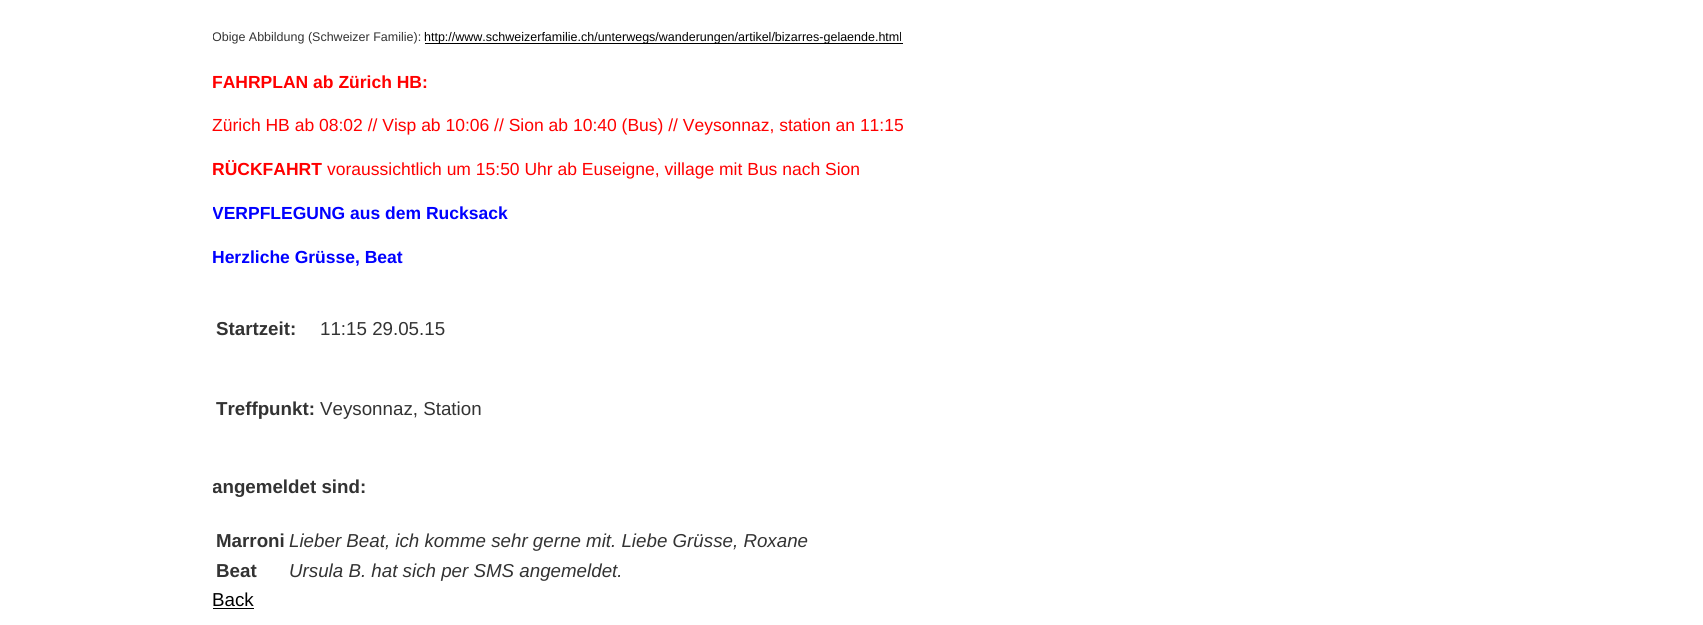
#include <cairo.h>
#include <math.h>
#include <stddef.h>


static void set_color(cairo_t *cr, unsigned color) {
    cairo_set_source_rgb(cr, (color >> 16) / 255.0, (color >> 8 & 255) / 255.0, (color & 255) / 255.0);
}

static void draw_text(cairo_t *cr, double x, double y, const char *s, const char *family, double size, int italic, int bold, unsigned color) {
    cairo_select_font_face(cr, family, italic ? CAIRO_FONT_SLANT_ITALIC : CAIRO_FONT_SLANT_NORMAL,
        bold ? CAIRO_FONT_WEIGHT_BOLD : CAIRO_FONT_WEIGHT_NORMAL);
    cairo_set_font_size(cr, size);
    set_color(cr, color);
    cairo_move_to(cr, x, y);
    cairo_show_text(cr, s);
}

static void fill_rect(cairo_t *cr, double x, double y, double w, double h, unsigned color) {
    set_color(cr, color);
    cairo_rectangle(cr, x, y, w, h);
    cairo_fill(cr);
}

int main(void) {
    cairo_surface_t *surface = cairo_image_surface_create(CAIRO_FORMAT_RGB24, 1703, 625);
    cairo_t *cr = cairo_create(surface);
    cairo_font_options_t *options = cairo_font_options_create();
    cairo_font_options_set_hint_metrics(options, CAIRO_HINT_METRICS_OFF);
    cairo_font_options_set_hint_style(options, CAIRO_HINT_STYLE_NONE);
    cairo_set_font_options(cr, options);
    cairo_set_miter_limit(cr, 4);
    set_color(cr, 0xFFFFFF);
    cairo_paint(cr);
    cairo_save(cr);
    cairo_rectangle(cr, 213, 0, 975, 625);
    cairo_clip(cr);
    draw_text(cr, 212, 41, "Obige Abbildung (Schweizer Familie):", "Liberation Sans", 12.5, 0, 0, 0x333333);
    cairo_restore(cr);
    fill_rect(cr, 425, 43, 478, 1, 0x000000);
    draw_text(cr, 424, 41, "http://www.schweizerfamilie.ch/unterwegs/wanderungen/artikel/bizarres-gelaende.html", "Liberation Sans", 12.5, 0, 0, 0x000000);
    draw_text(cr, 212, 88, "FAHRPLAN ab Zürich HB:", "Liberation Sans", 17.5, 0, 1, 0xFF0000);
    draw_text(cr, 212, 131, "Zürich HB ab 08:02 // Visp ab 10:06 // Sion ab 10:40 (Bus) // Veysonnaz, station an 11:15", "Liberation Sans", 17.5, 0, 0, 0xFF0000);
    draw_text(cr, 212, 175, "RÜCKFAHRT", "Liberation Sans", 17.5, 0, 1, 0xFF0000);
    draw_text(cr, 327, 175, "voraussichtlich um 15:50 Uhr ab Euseigne, village mit Bus nach Sion", "Liberation Sans", 17.5, 0, 0, 0xFF0000);
    cairo_save(cr);
    cairo_rectangle(cr, 213, 0, 975, 625);
    cairo_clip(cr);
    draw_text(cr, 212, 219, "VERPFLEGUNG aus dem Rucksack", "Liberation Sans", 17.5, 0, 1, 0x0000FF);
    cairo_restore(cr);
    draw_text(cr, 212, 263, "Herzliche Grüsse, Beat", "Liberation Sans", 17.5, 0, 1, 0x0000FF);
    draw_text(cr, 216, 335, "Startzeit:", "Liberation Sans", 18.75, 0, 1, 0x333333);
    draw_text(cr, 320, 335, "11:15 29.05.15", "Liberation Sans", 18.75, 0, 0, 0x333333);
    draw_text(cr, 216, 415, "Treffpunkt:", "Liberation Sans", 18.75, 0, 1, 0x333333);
    draw_text(cr, 320, 415, "Veysonnaz, Station", "Liberation Sans", 18.75, 0, 0, 0x333333);
    cairo_save(cr);
    cairo_rectangle(cr, 213, 0, 975, 625);
    cairo_clip(cr);
    draw_text(cr, 212, 493, "angemeldet sind:", "Liberation Sans", 18.75, 0, 1, 0x333333);
    cairo_restore(cr);
    draw_text(cr, 216, 547, "Marroni", "Liberation Sans", 18.75, 0, 1, 0x333333);
    draw_text(cr, 289, 547, "Lieber Beat, ich komme sehr gerne mit. Liebe Grüsse, Roxane", "Liberation Sans", 18.75, 1, 0, 0x333333);
    draw_text(cr, 216, 577, "Beat", "Liberation Sans", 18.75, 0, 1, 0x333333);
    draw_text(cr, 289, 577, "Ursula B. hat sich per SMS angemeldet.", "Liberation Sans", 18.75, 1, 0, 0x333333);
    draw_text(cr, 212, 606, "Back", "Liberation Sans", 18.75, 0, 0, 0x000000);
    fill_rect(cr, 213, 608, 41, 1, 0x000000);
    cairo_surface_write_to_png(surface, "output.png");
    cairo_font_options_destroy(options);
    cairo_destroy(cr);
    cairo_surface_destroy(surface);
    return 0;
}
